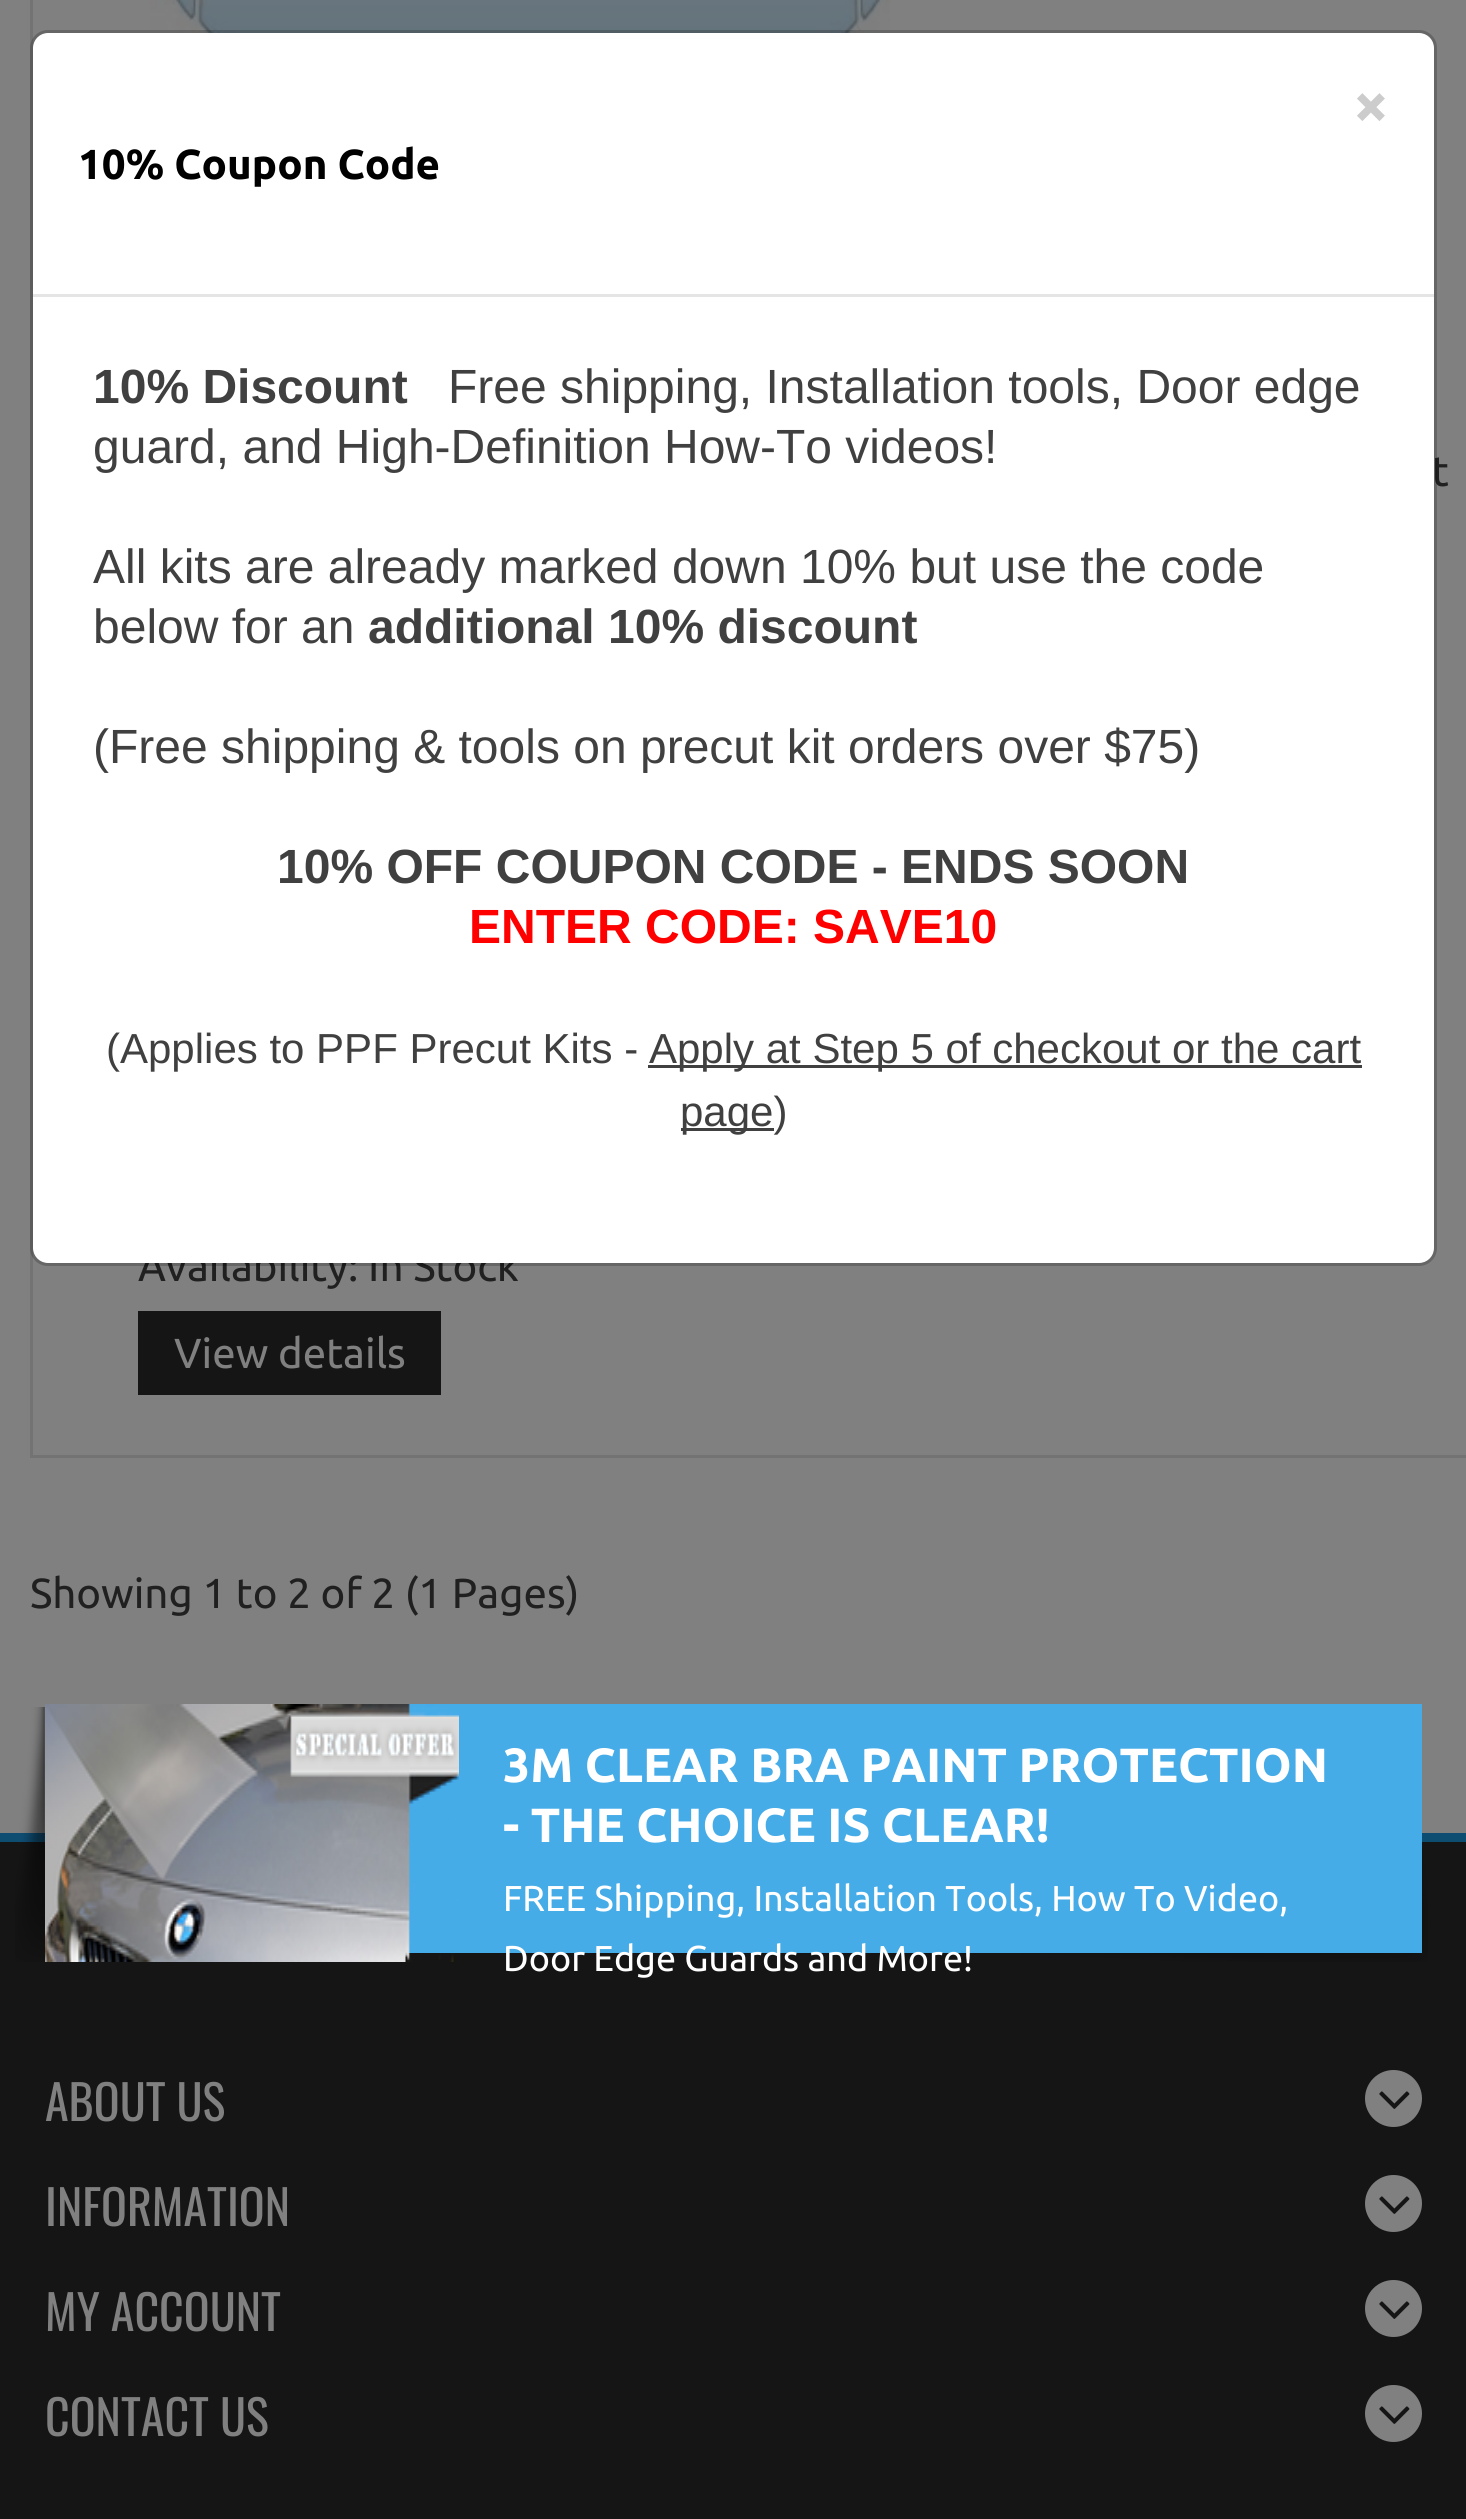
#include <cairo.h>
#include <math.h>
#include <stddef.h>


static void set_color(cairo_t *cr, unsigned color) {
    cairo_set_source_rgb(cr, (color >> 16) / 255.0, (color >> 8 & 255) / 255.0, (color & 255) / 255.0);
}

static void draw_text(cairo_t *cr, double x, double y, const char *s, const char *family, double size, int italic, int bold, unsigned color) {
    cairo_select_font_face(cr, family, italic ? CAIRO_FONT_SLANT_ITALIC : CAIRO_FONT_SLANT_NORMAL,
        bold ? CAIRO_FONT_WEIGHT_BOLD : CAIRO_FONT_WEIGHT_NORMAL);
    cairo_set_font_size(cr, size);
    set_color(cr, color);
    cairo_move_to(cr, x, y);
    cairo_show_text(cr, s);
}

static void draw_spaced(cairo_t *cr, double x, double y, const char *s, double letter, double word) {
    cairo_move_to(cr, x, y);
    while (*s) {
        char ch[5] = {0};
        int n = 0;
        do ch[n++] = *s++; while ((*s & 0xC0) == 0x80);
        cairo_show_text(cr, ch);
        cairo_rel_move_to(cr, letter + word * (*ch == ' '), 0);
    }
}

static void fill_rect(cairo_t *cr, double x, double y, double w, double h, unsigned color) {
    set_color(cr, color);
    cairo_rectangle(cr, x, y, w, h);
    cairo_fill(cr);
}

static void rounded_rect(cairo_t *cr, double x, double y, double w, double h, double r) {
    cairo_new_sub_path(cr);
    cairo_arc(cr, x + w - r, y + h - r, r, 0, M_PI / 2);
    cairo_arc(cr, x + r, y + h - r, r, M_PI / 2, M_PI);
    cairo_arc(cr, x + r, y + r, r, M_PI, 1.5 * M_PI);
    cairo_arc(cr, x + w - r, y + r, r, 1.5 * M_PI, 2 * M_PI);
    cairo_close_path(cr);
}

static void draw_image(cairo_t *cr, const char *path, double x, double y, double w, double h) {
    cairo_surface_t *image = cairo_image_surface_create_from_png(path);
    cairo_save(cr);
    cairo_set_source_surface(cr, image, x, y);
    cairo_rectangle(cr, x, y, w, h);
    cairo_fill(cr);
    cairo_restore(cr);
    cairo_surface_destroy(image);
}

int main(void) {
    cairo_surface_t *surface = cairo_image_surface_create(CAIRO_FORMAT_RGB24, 1466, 2519);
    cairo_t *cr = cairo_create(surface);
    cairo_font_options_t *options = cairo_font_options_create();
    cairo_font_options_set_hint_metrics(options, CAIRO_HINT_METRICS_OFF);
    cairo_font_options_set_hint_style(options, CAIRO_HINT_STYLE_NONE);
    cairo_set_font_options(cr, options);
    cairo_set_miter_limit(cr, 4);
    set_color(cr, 0x808080);
    cairo_paint(cr);
    cairo_rectangle(cr, 31.5, -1.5, 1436, 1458);
    set_color(cr, 0x737373);
    cairo_set_line_width(cr, 3);
    cairo_stroke(cr);
    draw_text(cr, 138, 1281, "Availability: In Stock", "Ubuntu", 42, 0, 0, 0x202020);
    set_color(cr, 0xFFFFFF);
    rounded_rect(cr, 33, 33, 1401, 1230, 15);
    cairo_fill(cr);
    draw_image(cr, "assets/img1.png", 150, 0, 740, 33);
    set_color(cr, 0x202020);
    draw_spaced(cr, 1432, 486, "t", 0, 14);
    rounded_rect(cr, 31.5, 31.5, 1404, 1233, 16.5);
    cairo_set_source_rgba(cr, 0, 0, 0, 0.2);
    cairo_stroke(cr);
    fill_rect(cr, 33, 294, 1401, 3, 0xE5E5E5);
    draw_text(cr, 1353, 126, "×", "Ubuntu", 63, 0, 1, 0xCCCCCC);
    draw_text(cr, 78, 179, "10% Coupon Code", "Ubuntu", 42, 0, 1, 0x000000);
    draw_text(cr, 93, 403, "10% Discount", "Liberation Sans", 48, 0, 1, 0x404040);
    draw_text(cr, 448, 403, "Free shipping, Installation tools, Door edge", "Liberation Sans", 48, 0, 0, 0x404040);
    draw_text(cr, 93, 463, "guard, and High-Definition How-To videos!", "Liberation Sans", 48, 0, 0, 0x404040);
    draw_text(cr, 93, 583, "All kits are already marked down 10% but use the code", "Liberation Sans", 48, 0, 0, 0x404040);
    draw_text(cr, 93, 643, "below for an", "Liberation Sans", 48, 0, 0, 0x404040);
    draw_text(cr, 368, 643, "additional 10% discount", "Liberation Sans", 48, 0, 1, 0x404040);
    draw_text(cr, 93, 763, "(Free shipping & tools on precut kit orders over $75)", "Liberation Sans", 48, 0, 0, 0x404040);
    draw_text(cr, 277, 883, "10% OFF COUPON CODE - ENDS SOON", "Liberation Sans", 48, 0, 1, 0x404040);
    draw_text(cr, 469, 943, "ENTER CODE: SAVE10", "Liberation Sans", 48, 0, 1, 0xFF0000);
    draw_text(cr, 106, 1063, "(Applies to PPF Precut Kits -", "Liberation Sans", 42, 0, 0, 0x404040);
    fill_rect(cr, 648, 1065, 714, 3, 0x404040);
    draw_text(cr, 649, 1063, "Apply at Step 5 of checkout or the cart", "Liberation Sans", 42, 0, 0, 0x404040);
    fill_rect(cr, 681, 1128, 93, 3, 0x404040);
    draw_text(cr, 680, 1126, "page)", "Liberation Sans", 42, 0, 0, 0x404040);
    fill_rect(cr, 138, 1311, 303, 84, 0x151515);
    draw_text(cr, 174, 1368, "View details", "Ubuntu", 42, 0, 0, 0x808080);
    draw_text(cr, 30, 1608, "Showing 1 to 2 of 2 (1 Pages)", "Ubuntu", 42, 0, 0, 0x202020);
    fill_rect(cr, 0, 1842, 1466, 677, 0x151515);
    fill_rect(cr, 0, 1833, 1466, 9, 0x0E4D72);
    draw_image(cr, "assets/img2.png", 15, 1707, 415, 255);
    draw_image(cr, "assets/img4.png", 1013, 1846, 415, 116);
    fill_rect(cr, 405, 1704, 1017, 249, 0x46ACE8);
    draw_image(cr, "assets/img3.png", 45, 1704, 414, 258);
    draw_text(cr, 503, 1782, "3M CLEAR BRA PAINT PROTECTION", "Ubuntu", 48, 0, 1, 0xFFFFFF);
    draw_text(cr, 503, 1842, "- THE CHOICE IS CLEAR!", "Ubuntu", 48, 0, 1, 0xFFFFFF);
    draw_text(cr, 503, 1911, "FREE Shipping, Installation Tools, How To Video,", "Ubuntu", 36, 0, 0, 0xFFFFFF);
    draw_text(cr, 503, 1971, "Door Edge Guards and More!", "Ubuntu", 36, 0, 0, 0xFFFFFF);
    draw_text(cr, 45, 2121, "ABOUT US", "Oswald", 48, 0, 0, 0x808080);
    cairo_new_path(cr);
    cairo_arc(cr, 1393.5, 2098.5, 28.5, 0, 2 * M_PI);
    cairo_fill(cr);
    draw_image(cr, "assets/img5.png", 1379, 2091, 31, 18);
    draw_text(cr, 45, 2226, "INFORMATION", "Oswald", 48, 0, 0, 0x808080);
    cairo_new_path(cr);
    cairo_arc(cr, 1393.5, 2203.5, 28.5, 0, 2 * M_PI);
    cairo_fill(cr);
    draw_image(cr, "assets/img5.png", 1379, 2196, 31, 18);
    draw_text(cr, 45, 2331, "MY ACCOUNT", "Oswald", 48, 0, 0, 0x808080);
    cairo_new_path(cr);
    cairo_arc(cr, 1393.5, 2308.5, 28.5, 0, 2 * M_PI);
    cairo_fill(cr);
    draw_image(cr, "assets/img5.png", 1379, 2301, 31, 18);
    draw_text(cr, 45, 2436, "CONTACT US", "Oswald", 48, 0, 0, 0x808080);
    cairo_new_path(cr);
    cairo_arc(cr, 1393.5, 2413.5, 28.5, 0, 2 * M_PI);
    cairo_fill(cr);
    draw_image(cr, "assets/img5.png", 1379, 2406, 31, 18);
    cairo_surface_write_to_png(surface, "output.png");
    cairo_font_options_destroy(options);
    cairo_destroy(cr);
    cairo_surface_destroy(surface);
    return 0;
}
